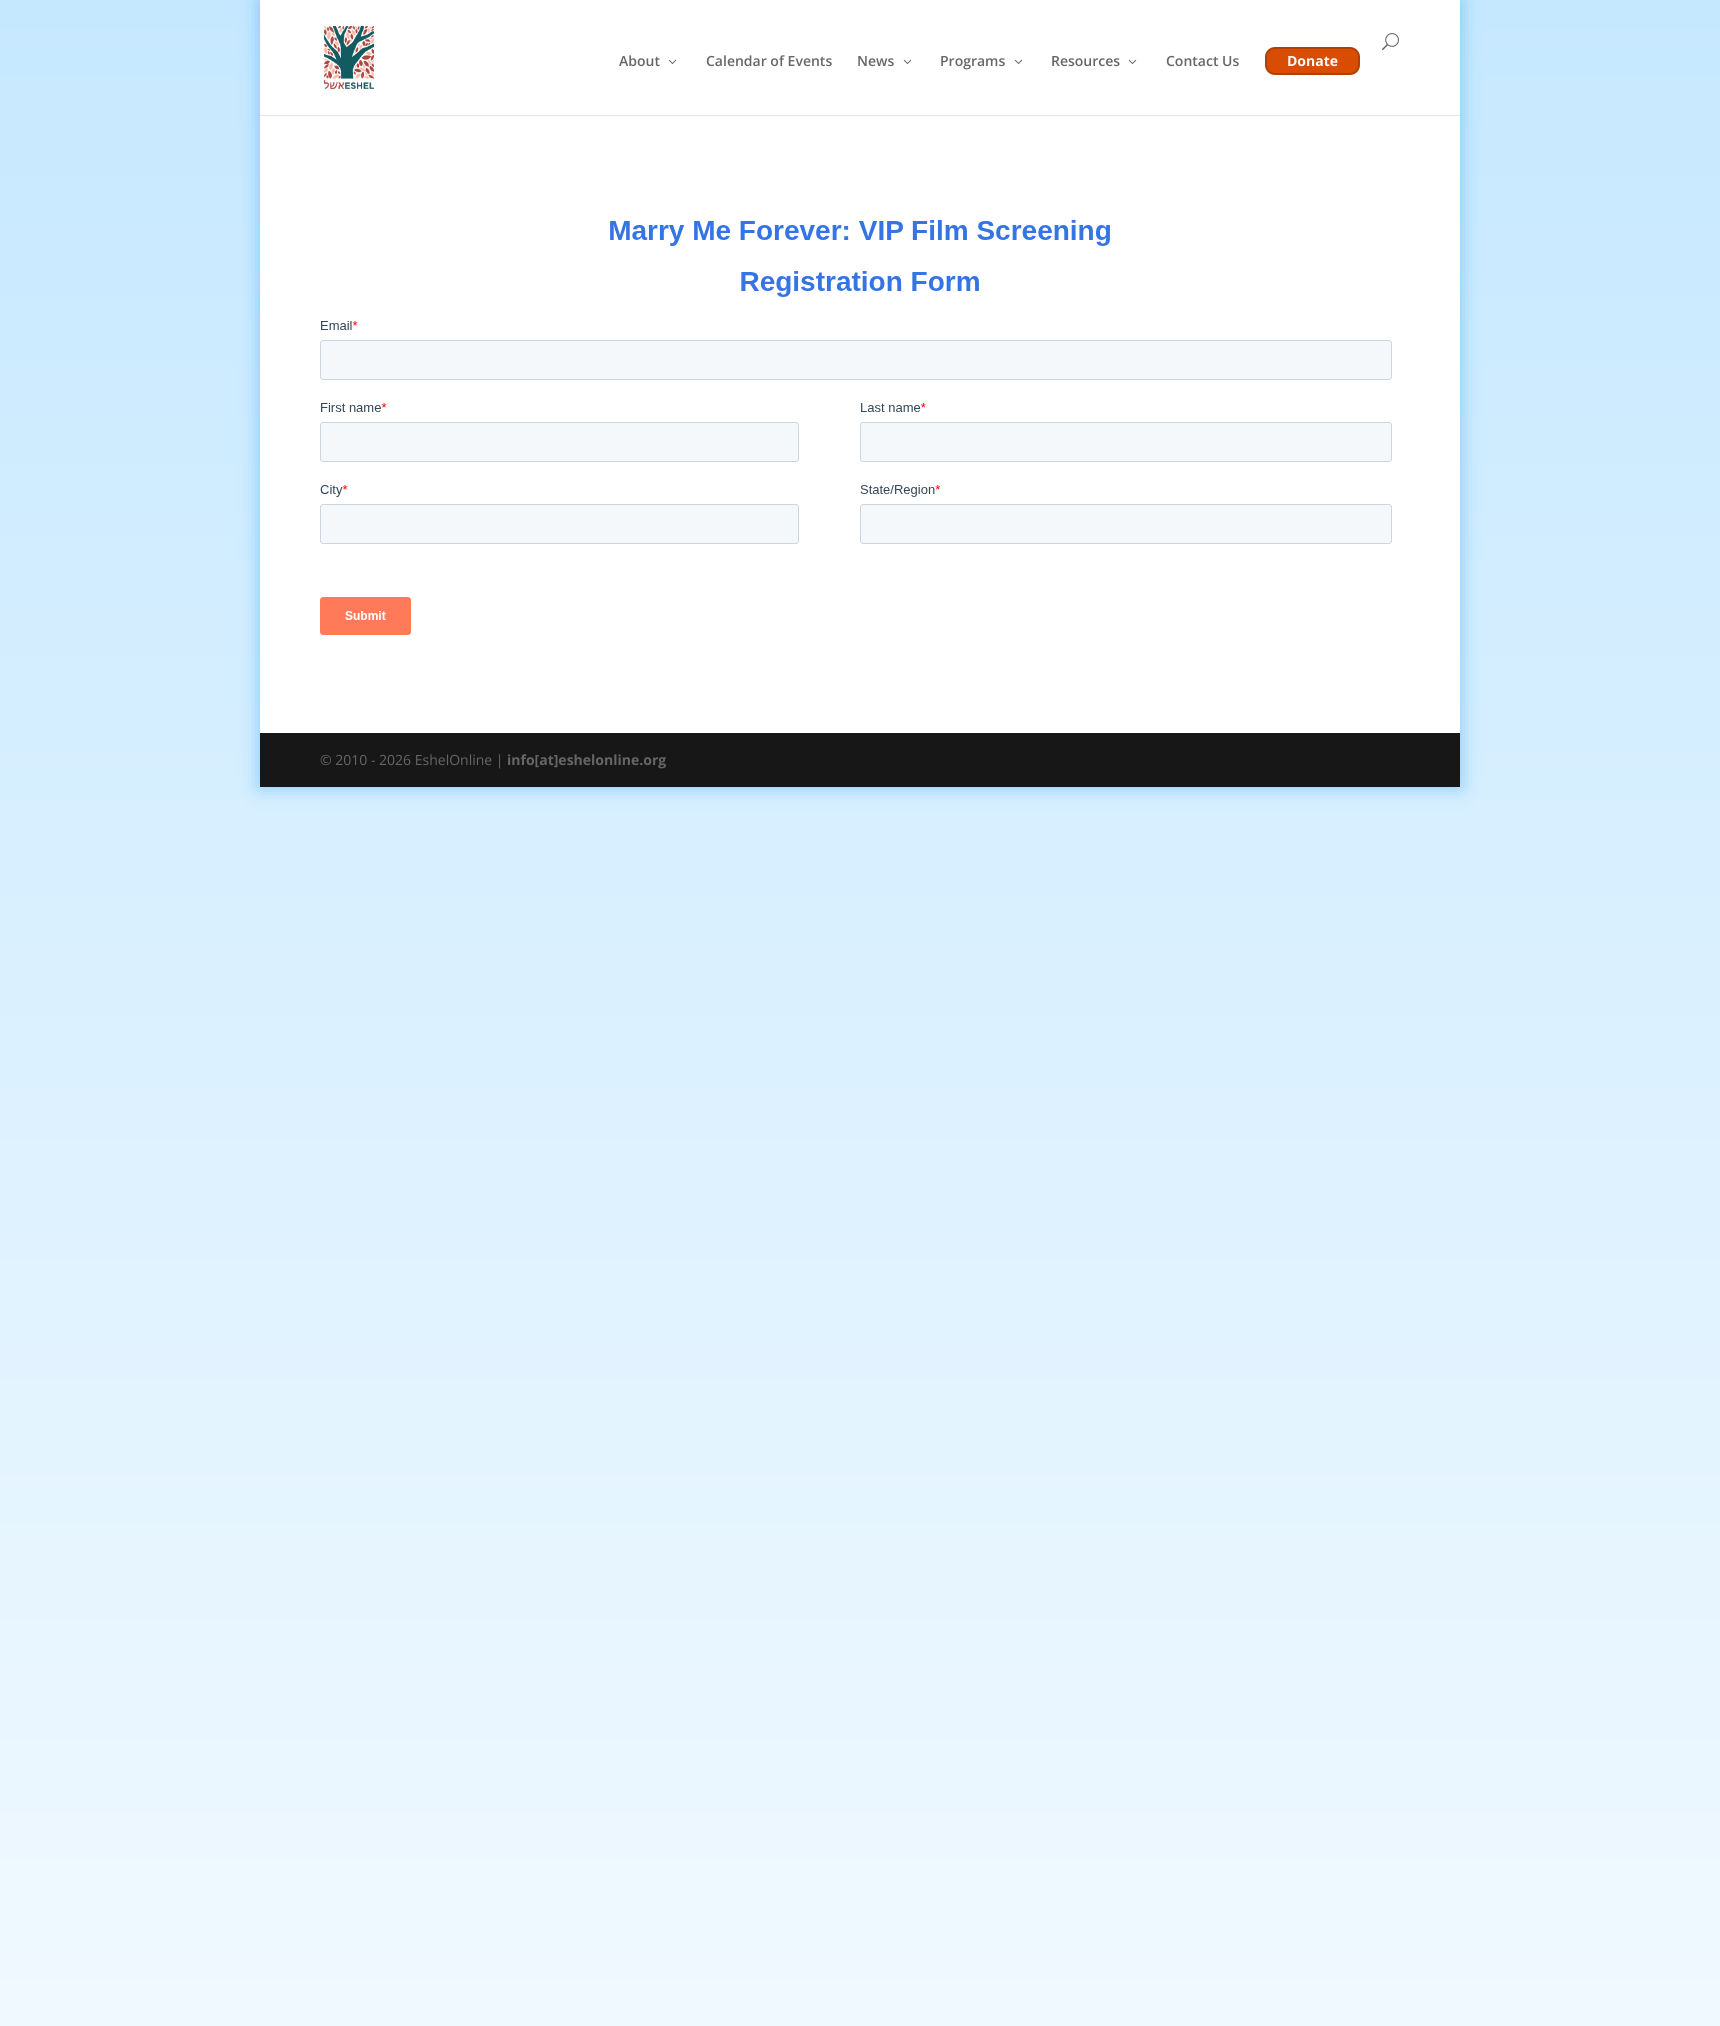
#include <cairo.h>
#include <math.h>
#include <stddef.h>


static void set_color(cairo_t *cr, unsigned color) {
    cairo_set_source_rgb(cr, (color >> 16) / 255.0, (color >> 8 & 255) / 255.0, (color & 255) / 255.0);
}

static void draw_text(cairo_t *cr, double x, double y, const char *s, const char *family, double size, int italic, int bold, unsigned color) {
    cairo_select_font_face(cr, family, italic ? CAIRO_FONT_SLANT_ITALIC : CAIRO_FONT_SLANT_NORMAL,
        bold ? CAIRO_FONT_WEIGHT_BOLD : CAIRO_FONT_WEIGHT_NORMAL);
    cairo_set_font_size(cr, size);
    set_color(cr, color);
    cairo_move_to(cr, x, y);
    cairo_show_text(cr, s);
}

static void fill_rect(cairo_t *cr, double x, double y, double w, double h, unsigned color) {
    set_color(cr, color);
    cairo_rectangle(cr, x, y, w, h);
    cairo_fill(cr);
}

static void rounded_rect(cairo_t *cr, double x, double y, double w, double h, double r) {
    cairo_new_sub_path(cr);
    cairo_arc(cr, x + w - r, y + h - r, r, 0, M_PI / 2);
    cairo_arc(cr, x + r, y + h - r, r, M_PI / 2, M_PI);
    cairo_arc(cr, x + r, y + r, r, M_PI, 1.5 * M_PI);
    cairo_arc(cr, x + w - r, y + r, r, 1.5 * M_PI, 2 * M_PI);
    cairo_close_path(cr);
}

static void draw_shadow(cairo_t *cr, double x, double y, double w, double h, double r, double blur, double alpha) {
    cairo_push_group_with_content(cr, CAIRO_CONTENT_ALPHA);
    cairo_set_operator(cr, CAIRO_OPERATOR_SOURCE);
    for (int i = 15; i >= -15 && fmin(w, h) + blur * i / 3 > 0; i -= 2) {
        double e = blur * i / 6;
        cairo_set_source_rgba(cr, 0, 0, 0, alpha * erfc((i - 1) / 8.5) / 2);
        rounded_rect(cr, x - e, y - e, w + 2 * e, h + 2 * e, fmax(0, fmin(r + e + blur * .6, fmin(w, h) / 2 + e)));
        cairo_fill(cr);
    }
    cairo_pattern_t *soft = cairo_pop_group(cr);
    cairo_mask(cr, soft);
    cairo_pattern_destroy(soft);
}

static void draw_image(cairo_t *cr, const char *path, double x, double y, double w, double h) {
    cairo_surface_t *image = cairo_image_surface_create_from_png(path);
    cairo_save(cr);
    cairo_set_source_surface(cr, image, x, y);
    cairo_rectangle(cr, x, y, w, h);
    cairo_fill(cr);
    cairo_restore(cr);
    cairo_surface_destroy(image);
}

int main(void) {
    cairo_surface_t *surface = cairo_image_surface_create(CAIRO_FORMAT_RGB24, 1720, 2026);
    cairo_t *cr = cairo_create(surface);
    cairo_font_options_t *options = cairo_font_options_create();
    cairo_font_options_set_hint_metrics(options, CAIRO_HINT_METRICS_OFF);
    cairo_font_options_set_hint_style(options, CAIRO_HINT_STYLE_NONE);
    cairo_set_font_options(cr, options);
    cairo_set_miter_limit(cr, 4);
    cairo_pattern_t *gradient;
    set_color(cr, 0xFFFFFF);
    cairo_paint(cr);
    gradient = cairo_pattern_create_linear(860, 0, 860, 2026);
    cairo_pattern_add_color_stop_rgba(gradient, 0, 0.776, 0.91, 1, 1);
    cairo_pattern_add_color_stop_rgba(gradient, 1, 0.941, 0.976, 1, 1);
    cairo_set_source(cr, gradient);
    cairo_pattern_destroy(gradient);
    cairo_rectangle(cr, 0, 0, 1720, 2026);
    cairo_fill(cr);
    set_color(cr, 0x2DA3F2);
    draw_shadow(cr, 260, 0, 1200, 787, 0, 10, 0.5);
    fill_rect(cr, 260, 0, 1200, 733, 0xFFFFFF);
    fill_rect(cr, 260, 115, 1200, 1, 0xE6E6E6);
    draw_image(cr, "assets/img1.png", 324, 26, 50, 63);
    draw_image(cr, "assets/img2.png", 1382, 33, 17, 18);
    draw_text(cr, 619, 66, "About", "Open Sans SemiBold", 14, 0, 0, 0x666666);
    draw_image(cr, "assets/img3.png", 668, 59, 9, 5);
    draw_text(cr, 706, 66, "Calendar of Events", "Open Sans SemiBold", 14, 0, 0, 0x666666);
    draw_text(cr, 857, 66, "News", "Open Sans SemiBold", 14, 0, 0, 0x666666);
    draw_image(cr, "assets/img3.png", 903, 59, 9, 5);
    draw_text(cr, 940, 66, "Programs", "Open Sans SemiBold", 14, 0, 0, 0x666666);
    draw_image(cr, "assets/img3.png", 1014, 59, 9, 5);
    draw_text(cr, 1051, 66, "Resources", "Open Sans SemiBold", 14, 0, 0, 0x666666);
    draw_image(cr, "assets/img3.png", 1128, 59, 9, 5);
    draw_text(cr, 1166, 66, "Contact Us", "Open Sans SemiBold", 14, 0, 0, 0x666666);
    set_color(cr, 0xD84D02);
    rounded_rect(cr, 1266, 48, 93, 26, 9);
    cairo_fill_preserve(cr);
    set_color(cr, 0xB13F02);
    cairo_stroke(cr);
    draw_text(cr, 1287, 66, "Donate", "Open Sans", 14, 0, 1, 0xFFFFFF);
    draw_image(cr, "assets/img4.png", 320, 220, 1072, 415);
    fill_rect(cr, 260, 733, 1200, 54, 0x171717);
    draw_text(cr, 320, 765, "© 2010 - 2026 EshelOnline |", "Open Sans", 14, 0, 0, 0x666666);
    draw_text(cr, 507, 765, "info[at]eshelonline.org", "Open Sans", 14, 0, 1, 0x666666);
    cairo_surface_write_to_png(surface, "output.png");
    cairo_font_options_destroy(options);
    cairo_destroy(cr);
    cairo_surface_destroy(surface);
    return 0;
}
